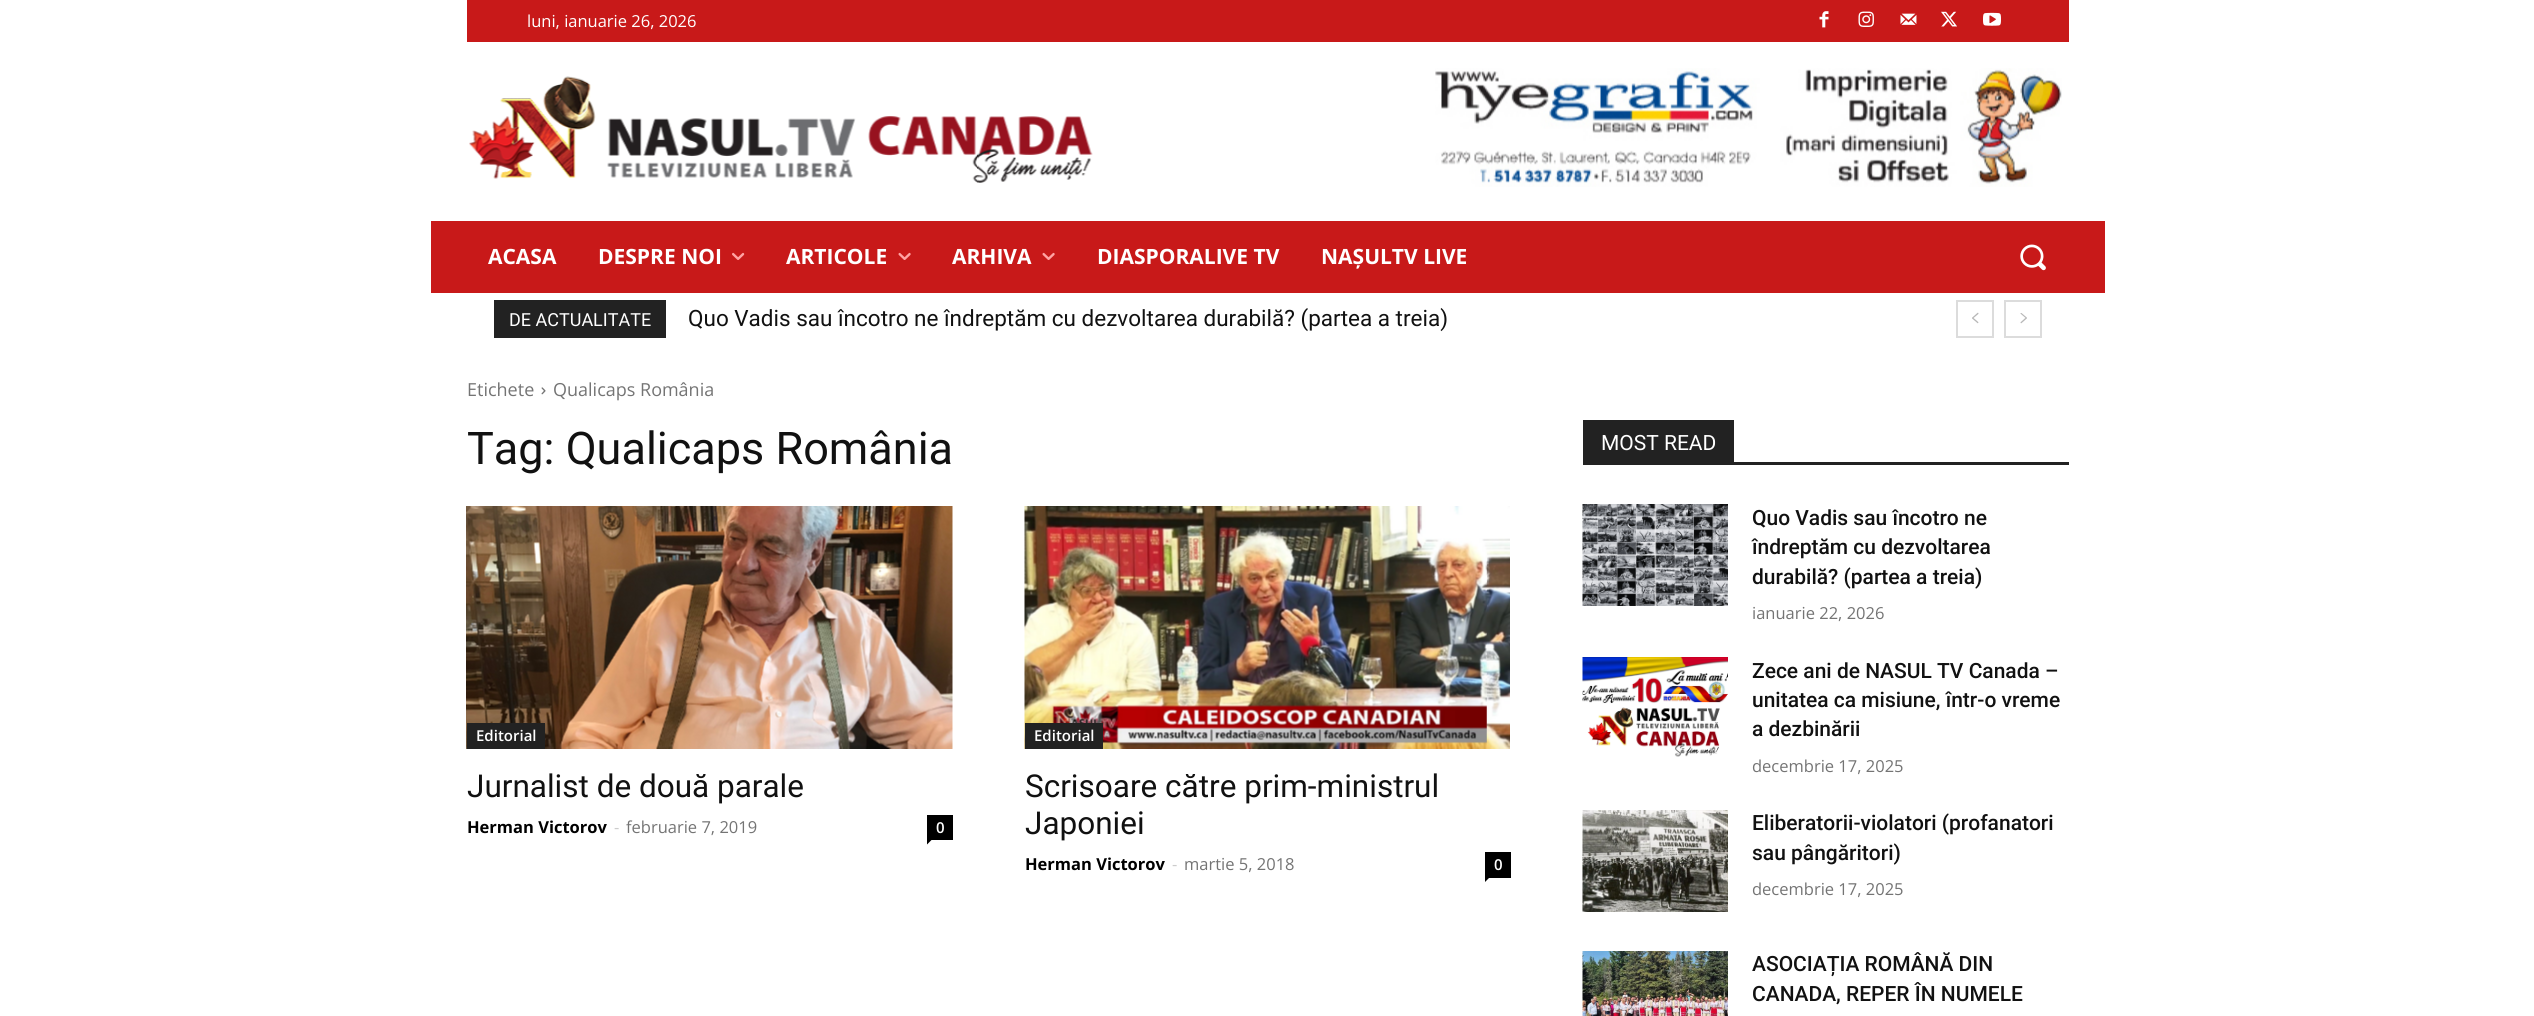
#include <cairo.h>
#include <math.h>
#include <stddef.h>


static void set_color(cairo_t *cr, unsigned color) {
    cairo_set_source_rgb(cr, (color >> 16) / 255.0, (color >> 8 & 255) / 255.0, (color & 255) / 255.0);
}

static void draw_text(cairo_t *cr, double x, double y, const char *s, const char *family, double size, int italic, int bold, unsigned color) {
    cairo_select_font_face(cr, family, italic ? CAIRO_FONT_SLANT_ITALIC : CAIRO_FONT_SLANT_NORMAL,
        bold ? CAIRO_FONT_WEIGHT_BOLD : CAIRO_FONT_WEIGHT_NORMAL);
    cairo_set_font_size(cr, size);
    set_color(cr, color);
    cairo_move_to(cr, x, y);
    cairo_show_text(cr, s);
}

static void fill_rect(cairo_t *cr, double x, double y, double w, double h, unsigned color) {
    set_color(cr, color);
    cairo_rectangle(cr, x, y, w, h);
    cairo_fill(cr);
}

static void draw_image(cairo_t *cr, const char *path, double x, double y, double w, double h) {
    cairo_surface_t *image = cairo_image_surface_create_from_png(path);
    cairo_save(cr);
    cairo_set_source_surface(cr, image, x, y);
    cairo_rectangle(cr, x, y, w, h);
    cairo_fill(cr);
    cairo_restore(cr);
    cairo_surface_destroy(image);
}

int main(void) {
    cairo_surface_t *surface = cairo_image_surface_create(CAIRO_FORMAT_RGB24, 2534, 1016);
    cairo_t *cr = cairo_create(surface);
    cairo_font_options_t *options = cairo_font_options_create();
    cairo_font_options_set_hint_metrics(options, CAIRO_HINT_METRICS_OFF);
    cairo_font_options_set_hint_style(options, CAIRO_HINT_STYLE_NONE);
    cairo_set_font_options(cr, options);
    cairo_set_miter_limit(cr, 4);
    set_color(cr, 0xFFFFFF);
    cairo_paint(cr);
    fill_rect(cr, 467, 0, 1602, 42, 0xC81919);
    draw_text(cr, 527, 27, "luni, ianuarie 26, 2026", "Open Sans", 16.5, 0, 0, 0xFFFFFF);
    draw_image(cr, "assets/img1.png", 1819, 11, 10, 17);
    draw_image(cr, "assets/img2.png", 1858, 11, 16, 16);
    draw_image(cr, "assets/img3.png", 1900, 13, 17, 12);
    draw_image(cr, "assets/img4.png", 1941, 11, 16, 16);
    draw_image(cr, "assets/img5.png", 1983, 12, 18, 14);
    draw_image(cr, "assets/img6.png", 469, 76, 624, 107);
    draw_image(cr, "assets/img7.png", 1435, 68, 627, 119);
    fill_rect(cr, 431, 221, 1674, 72, 0xC81919);
    draw_text(cr, 488, 264, "ACASA", "Open Sans", 21, 0, 1, 0xFFFFFF);
    draw_text(cr, 598, 264, "DESPRE NOI", "Open Sans", 21, 0, 1, 0xFFFFFF);
    draw_image(cr, "assets/img8.png", 732, 252, 13, 8);
    draw_text(cr, 786, 264, "ARTICOLE", "Open Sans", 21, 0, 1, 0xFFFFFF);
    draw_image(cr, "assets/img9.png", 898, 252, 13, 8);
    draw_text(cr, 952, 264, "ARHIVA", "Open Sans", 21, 0, 1, 0xFFFFFF);
    draw_image(cr, "assets/img9.png", 1042, 252, 13, 8);
    draw_text(cr, 1097, 264, "DIASPORALIVE TV", "Open Sans", 21, 0, 1, 0xFFFFFF);
    draw_text(cr, 1321, 264, "NAȘULTV LIVE", "Open Sans", 21, 0, 1, 0xFFFFFF);
    draw_image(cr, "assets/img10.png", 2020, 244, 26, 27);
    fill_rect(cr, 494, 300, 172, 38, 0x222222);
    draw_text(cr, 509, 326, "DE ACTUALITATE", "Roboto", 18, 0, 0, 0xFFFFFF);
    draw_text(cr, 688, 326, "Quo Vadis sau încotro ne îndreptăm cu dezvoltarea durabilă? (partea a treia)", "Roboto", 22.5, 0, 0, 0x111111);
    cairo_rectangle(cr, 1957, 301, 36, 36);
    set_color(cr, 0xDCDCDC);
    cairo_stroke(cr);
    draw_image(cr, "assets/img11.png", 1972, 312, 7, 12);
    cairo_rectangle(cr, 2005, 301, 36, 36);
    cairo_stroke(cr);
    draw_image(cr, "assets/img12.png", 2020, 313, 7, 11);
    draw_text(cr, 467, 396, "Etichete", "Open Sans", 18, 0, 0, 0x747474);
    draw_image(cr, "assets/img13.png", 541, 387, 5, 8);
    draw_text(cr, 553, 396, "Qualicaps România", "Open Sans", 18, 0, 0, 0x747474);
    draw_text(cr, 467, 464, "Tag: Qualicaps România", "Roboto", 45, 0, 0, 0x111111);
    draw_image(cr, "assets/img14.png", 466, 506, 487, 243);
    fill_rect(cr, 467, 723, 78, 26, 0x222222);
    draw_text(cr, 476, 741, "Editorial", "Open Sans SemiBold", 15, 0, 0, 0xFFFFFF);
    draw_text(cr, 467, 797, "Jurnalist de două parale", "Roboto", 31.5, 0, 0, 0x111111);
    draw_text(cr, 467, 833, "Herman Victorov", "Open Sans", 16.5, 0, 1, 0x000000);
    draw_text(cr, 614, 833, "-", "Open Sans", 16.5, 0, 0, 0xCCCCCC);
    draw_text(cr, 626, 833, "februarie 7, 2019", "Open Sans", 16.5, 0, 0, 0x747474);
    fill_rect(cr, 927, 815, 26, 25, 0x000000);
    draw_text(cr, 936, 833, "0", "Open Sans SemiBold", 15, 0, 0, 0xFFFFFF);
    set_color(cr, 0x000000);
    cairo_new_path(cr);
    cairo_move_to(cr, 927, 840);
    cairo_line_to(cr, 931.5, 840);
    cairo_line_to(cr, 927, 844.5);
    cairo_close_path(cr);
    cairo_fill(cr);
    draw_image(cr, "assets/img15.png", 1024, 506, 486, 243);
    fill_rect(cr, 1025, 723, 78, 26, 0x222222);
    draw_text(cr, 1034, 741, "Editorial", "Open Sans SemiBold", 15, 0, 0, 0xFFFFFF);
    draw_text(cr, 1025, 797, "Scrisoare către prim-ministrul", "Roboto", 31.5, 0, 0, 0x111111);
    draw_text(cr, 1025, 834, "Japoniei", "Roboto", 31.5, 0, 0, 0x111111);
    draw_text(cr, 1025, 870, "Herman Victorov", "Open Sans", 16.5, 0, 1, 0x000000);
    draw_text(cr, 1172, 870, "-", "Open Sans", 16.5, 0, 0, 0xCCCCCC);
    draw_text(cr, 1184, 870, "martie 5, 2018", "Open Sans", 16.5, 0, 0, 0x747474);
    fill_rect(cr, 1485, 852, 26, 26, 0x000000);
    draw_text(cr, 1494, 870, "0", "Open Sans SemiBold", 15, 0, 0, 0xFFFFFF);
    set_color(cr, 0x000000);
    cairo_new_path(cr);
    cairo_move_to(cr, 1485, 877.5);
    cairo_line_to(cr, 1489.5, 877.5);
    cairo_line_to(cr, 1485, 882);
    cairo_close_path(cr);
    cairo_fill(cr);
    fill_rect(cr, 1583, 462, 486, 3, 0x222222);
    fill_rect(cr, 1583, 420, 151, 42, 0x222222);
    draw_text(cr, 1601, 450, "MOST READ", "Roboto", 21, 0, 0, 0xFFFFFF);
    draw_image(cr, "assets/img16.png", 1582, 504, 146, 102);
    draw_text(cr, 1752, 525, "Quo Vadis sau încotro ne", "Roboto Medium", 21, 0, 0, 0x111111);
    draw_text(cr, 1752, 554, "îndreptăm cu dezvoltarea", "Roboto Medium", 21, 0, 0, 0x111111);
    draw_text(cr, 1752, 584, "durabilă? (partea a treia)", "Roboto Medium", 21, 0, 0, 0x111111);
    draw_text(cr, 1752, 619, "ianuarie 22, 2026", "Open Sans", 16.5, 0, 0, 0x747474);
    draw_image(cr, "assets/img17.png", 1582, 657, 146, 100);
    draw_text(cr, 1752, 678, "Zece ani de NASUL TV Canada –", "Roboto Medium", 21, 0, 0, 0x111111);
    draw_text(cr, 1752, 707, "unitatea ca misiune, într-o vreme", "Roboto Medium", 21, 0, 0, 0x111111);
    draw_text(cr, 1752, 736, "a dezbinării", "Roboto Medium", 21, 0, 0, 0x111111);
    draw_text(cr, 1752, 772, "decembrie 17, 2025", "Open Sans", 16.5, 0, 0, 0x747474);
    draw_image(cr, "assets/img18.png", 1582, 810, 146, 102);
    draw_text(cr, 1752, 830, "Eliberatorii-violatori (profanatori", "Roboto Medium", 21, 0, 0, 0x111111);
    draw_text(cr, 1752, 860, "sau pângăritori)", "Roboto Medium", 21, 0, 0, 0x111111);
    draw_text(cr, 1752, 895, "decembrie 17, 2025", "Open Sans", 16.5, 0, 0, 0x747474);
    draw_image(cr, "assets/img19.png", 1582, 951, 146, 65);
    draw_text(cr, 1752, 971, "ASOCIAȚIA ROMÂNĂ DIN", "Roboto Medium", 21, 0, 0, 0x111111);
    draw_text(cr, 1752, 1001, "CANADA, REPER ÎN NUMELE", "Roboto Medium", 21, 0, 0, 0x111111);
    cairo_surface_write_to_png(surface, "output.png");
    cairo_font_options_destroy(options);
    cairo_destroy(cr);
    cairo_surface_destroy(surface);
    return 0;
}
